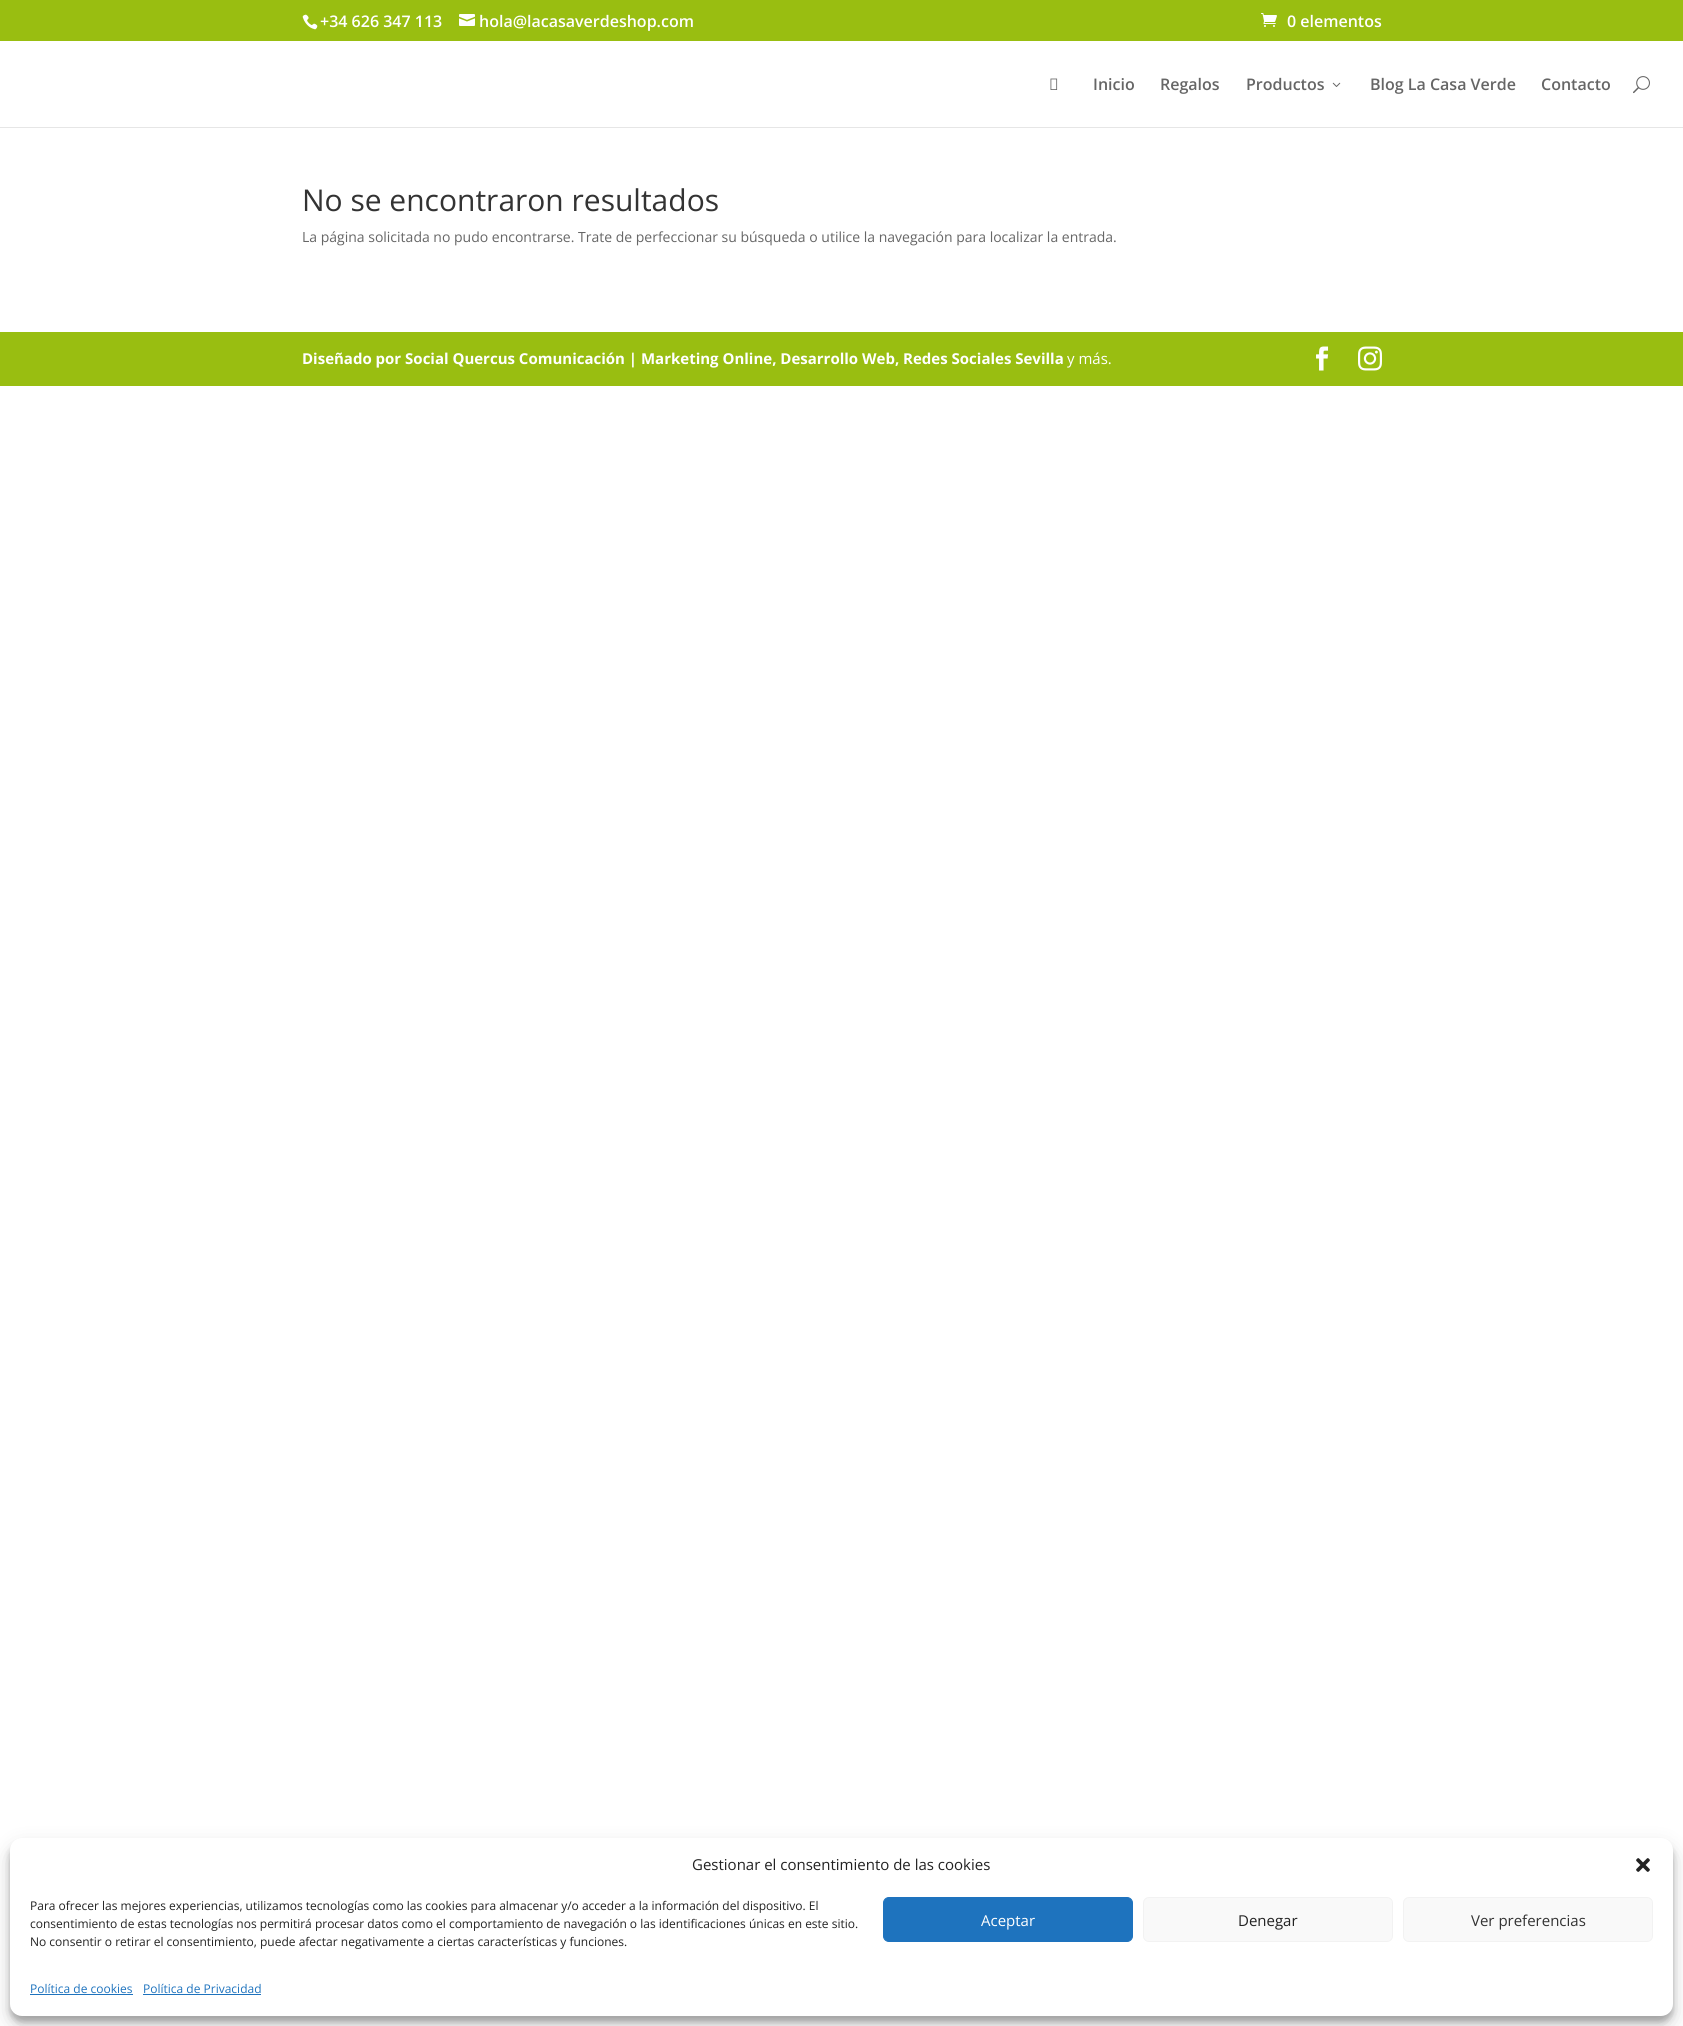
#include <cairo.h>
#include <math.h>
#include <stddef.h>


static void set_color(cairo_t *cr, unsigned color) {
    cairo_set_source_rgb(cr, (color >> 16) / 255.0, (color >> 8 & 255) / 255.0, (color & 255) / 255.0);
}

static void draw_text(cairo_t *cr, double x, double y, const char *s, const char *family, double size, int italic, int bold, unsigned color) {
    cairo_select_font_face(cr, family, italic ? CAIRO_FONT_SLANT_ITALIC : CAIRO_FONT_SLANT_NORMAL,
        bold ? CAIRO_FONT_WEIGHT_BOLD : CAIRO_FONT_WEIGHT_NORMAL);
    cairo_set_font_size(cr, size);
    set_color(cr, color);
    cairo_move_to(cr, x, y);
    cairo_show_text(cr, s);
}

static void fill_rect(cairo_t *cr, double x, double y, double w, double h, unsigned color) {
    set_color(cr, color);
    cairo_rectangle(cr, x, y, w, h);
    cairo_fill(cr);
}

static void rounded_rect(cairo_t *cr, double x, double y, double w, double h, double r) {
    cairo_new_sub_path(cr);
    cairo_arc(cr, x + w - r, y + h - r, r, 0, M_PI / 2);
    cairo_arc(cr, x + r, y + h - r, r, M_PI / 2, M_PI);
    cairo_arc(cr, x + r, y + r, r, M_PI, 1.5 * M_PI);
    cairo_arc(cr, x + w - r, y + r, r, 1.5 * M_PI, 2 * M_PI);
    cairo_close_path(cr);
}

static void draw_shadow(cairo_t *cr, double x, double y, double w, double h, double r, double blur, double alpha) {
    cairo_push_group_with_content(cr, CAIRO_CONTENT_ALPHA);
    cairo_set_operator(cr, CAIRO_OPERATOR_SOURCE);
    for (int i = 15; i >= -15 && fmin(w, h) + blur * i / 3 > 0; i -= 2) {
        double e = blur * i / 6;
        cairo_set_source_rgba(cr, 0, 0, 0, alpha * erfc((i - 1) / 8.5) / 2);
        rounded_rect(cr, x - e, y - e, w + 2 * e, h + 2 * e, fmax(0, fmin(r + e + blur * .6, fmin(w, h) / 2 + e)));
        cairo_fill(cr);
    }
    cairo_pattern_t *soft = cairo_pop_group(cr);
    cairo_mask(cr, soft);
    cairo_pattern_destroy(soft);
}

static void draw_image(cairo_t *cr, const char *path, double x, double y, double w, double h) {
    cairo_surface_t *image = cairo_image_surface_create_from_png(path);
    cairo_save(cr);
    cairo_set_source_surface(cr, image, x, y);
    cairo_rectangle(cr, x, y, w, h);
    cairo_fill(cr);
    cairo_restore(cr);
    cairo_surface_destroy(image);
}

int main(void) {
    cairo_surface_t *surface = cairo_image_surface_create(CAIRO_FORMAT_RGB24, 1683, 2026);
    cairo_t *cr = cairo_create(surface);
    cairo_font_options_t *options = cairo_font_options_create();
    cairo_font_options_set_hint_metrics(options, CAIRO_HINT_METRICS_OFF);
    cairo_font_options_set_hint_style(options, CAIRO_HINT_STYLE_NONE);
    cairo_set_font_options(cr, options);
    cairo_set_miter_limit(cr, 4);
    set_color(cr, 0xFFFFFF);
    cairo_paint(cr);
    fill_rect(cr, 0, 0, 1683, 41, 0x99BE11);
    draw_image(cr, "assets/img1.png", 302, 14, 16, 16);
    draw_text(cr, 320, 27, "+34 626 347 113", "Open Sans SemiBold", 16, 0, 0, 0xFFFFFF);
    draw_image(cr, "assets/img2.png", 459, 14, 16, 12);
    draw_text(cr, 479, 27, "hola@lacasaverdeshop.com", "Open Sans SemiBold", 16, 0, 0, 0xFFFFFF);
    draw_image(cr, "assets/img3.png", 1261, 13, 16, 14);
    draw_text(cr, 1287, 27, "0 elementos", "Open Sans SemiBold", 16, 0, 0, 0xFFFFFF);
    fill_rect(cr, 0, 127, 1683, 1, 0xE6E6E6);
    draw_image(cr, "assets/img4.png", 1050, 78, 8, 12);
    draw_text(cr, 1093, 90, "Inicio", "Open Sans SemiBold", 16, 0, 0, 0x666666);
    draw_text(cr, 1160, 90, "Regalos", "Open Sans SemiBold", 16, 0, 0, 0x666666);
    draw_text(cr, 1246, 90, "Productos", "Open Sans SemiBold", 16, 0, 0, 0x666666);
    draw_image(cr, "assets/img5.png", 1332, 82, 9, 5);
    draw_text(cr, 1370, 90, "Blog La Casa Verde", "Open Sans SemiBold", 16, 0, 0, 0x666666);
    draw_text(cr, 1541, 90, "Contacto", "Open Sans SemiBold", 16, 0, 0, 0x666666);
    draw_image(cr, "assets/img6.png", 1633, 76, 17, 18);
    draw_text(cr, 302, 211, "No se encontraron resultados", "Open Sans", 30, 0, 0, 0x333333);
    draw_text(cr, 302, 242, "La página solicitada no pudo encontrarse. Trate de perfeccionar su búsqueda o utilice la navegación para localizar la entrada.", "Open Sans", 14, 0, 0, 0x666666);
    fill_rect(cr, 0, 332, 1683, 54, 0x99BE11);
    draw_text(cr, 302, 364, "Diseñado por Social Quercus Comunicación | Marketing Online, Desarrollo Web, Redes Sociales Sevilla", "Open Sans", 15, 0, 1, 0xFFFFFF);
    draw_text(cr, 1067, 364, "y más.", "Open Sans", 15, 0, 0, 0xFFFFFF);
    draw_image(cr, "assets/img7.png", 1316, 346, 13, 25);
    draw_image(cr, "assets/img8.png", 1358, 346, 24, 25);
    set_color(cr, 0x000000);
    draw_shadow(cr, 10, 1844, 1663, 178, 12, 3, 0.23);
    draw_shadow(cr, 10, 1848, 1663, 178, 12, 10, 0.19);
    set_color(cr, 0xFFFFFF);
    rounded_rect(cr, 10, 1838, 1663, 178, 12);
    cairo_fill(cr);
    draw_text(cr, 692, 1870, "Gestionar el consentimiento de las cookies", "Open Sans", 15, 0, 0, 0x222222);
    draw_image(cr, "assets/img9.png", 1636, 1858, 14, 14);
    draw_text(cr, 30, 1910, "Para ofrecer las mejores experiencias, utilizamos tecnologías como las cookies para almacenar y/o acceder a la información del dispositivo. El", "Open Sans", 12, 0, 0, 0x222222);
    draw_text(cr, 30, 1928, "consentimiento de estas tecnologías nos permitirá procesar datos como el comportamiento de navegación o las identificaciones únicas en este sitio.", "Open Sans", 12, 0, 0, 0x222222);
    draw_text(cr, 30, 1946, "No consentir o retirar el consentimiento, puede afectar negativamente a ciertas características y funciones.", "Open Sans", 12, 0, 0, 0x222222);
    set_color(cr, 0x1E73BE);
    rounded_rect(cr, 883.5, 1897.5, 249, 44, 5.5);
    cairo_fill_preserve(cr);
    cairo_set_line_width(cr, 1);
    cairo_stroke(cr);
    draw_text(cr, 981, 1926, "Aceptar", "Open Sans", 15, 0, 0, 0xFFFFFF);
    set_color(cr, 0xF9F9F9);
    rounded_rect(cr, 1143.5, 1897.5, 249, 44, 5.5);
    cairo_fill_preserve(cr);
    set_color(cr, 0xF2F2F2);
    cairo_stroke(cr);
    draw_text(cr, 1238, 1926, "Denegar", "Open Sans", 15, 0, 0, 0x222222);
    set_color(cr, 0xF9F9F9);
    rounded_rect(cr, 1403.5, 1897.5, 249, 44, 5.5);
    cairo_fill_preserve(cr);
    set_color(cr, 0xF2F2F2);
    cairo_stroke(cr);
    draw_text(cr, 1471, 1926, "Ver preferencias", "Open Sans", 15, 0, 0, 0x333333);
    draw_text(cr, 30, 1993, "Política de cookies", "Open Sans", 12, 0, 0, 0x1E73BE);
    fill_rect(cr, 30, 1994, 103, 1, 0x1E73BE);
    draw_text(cr, 143, 1993, "Política de Privacidad", "Open Sans", 12, 0, 0, 0x1E73BE);
    fill_rect(cr, 143, 1994, 118, 1, 0x1E73BE);
    cairo_surface_write_to_png(surface, "output.png");
    cairo_font_options_destroy(options);
    cairo_destroy(cr);
    cairo_surface_destroy(surface);
    return 0;
}
